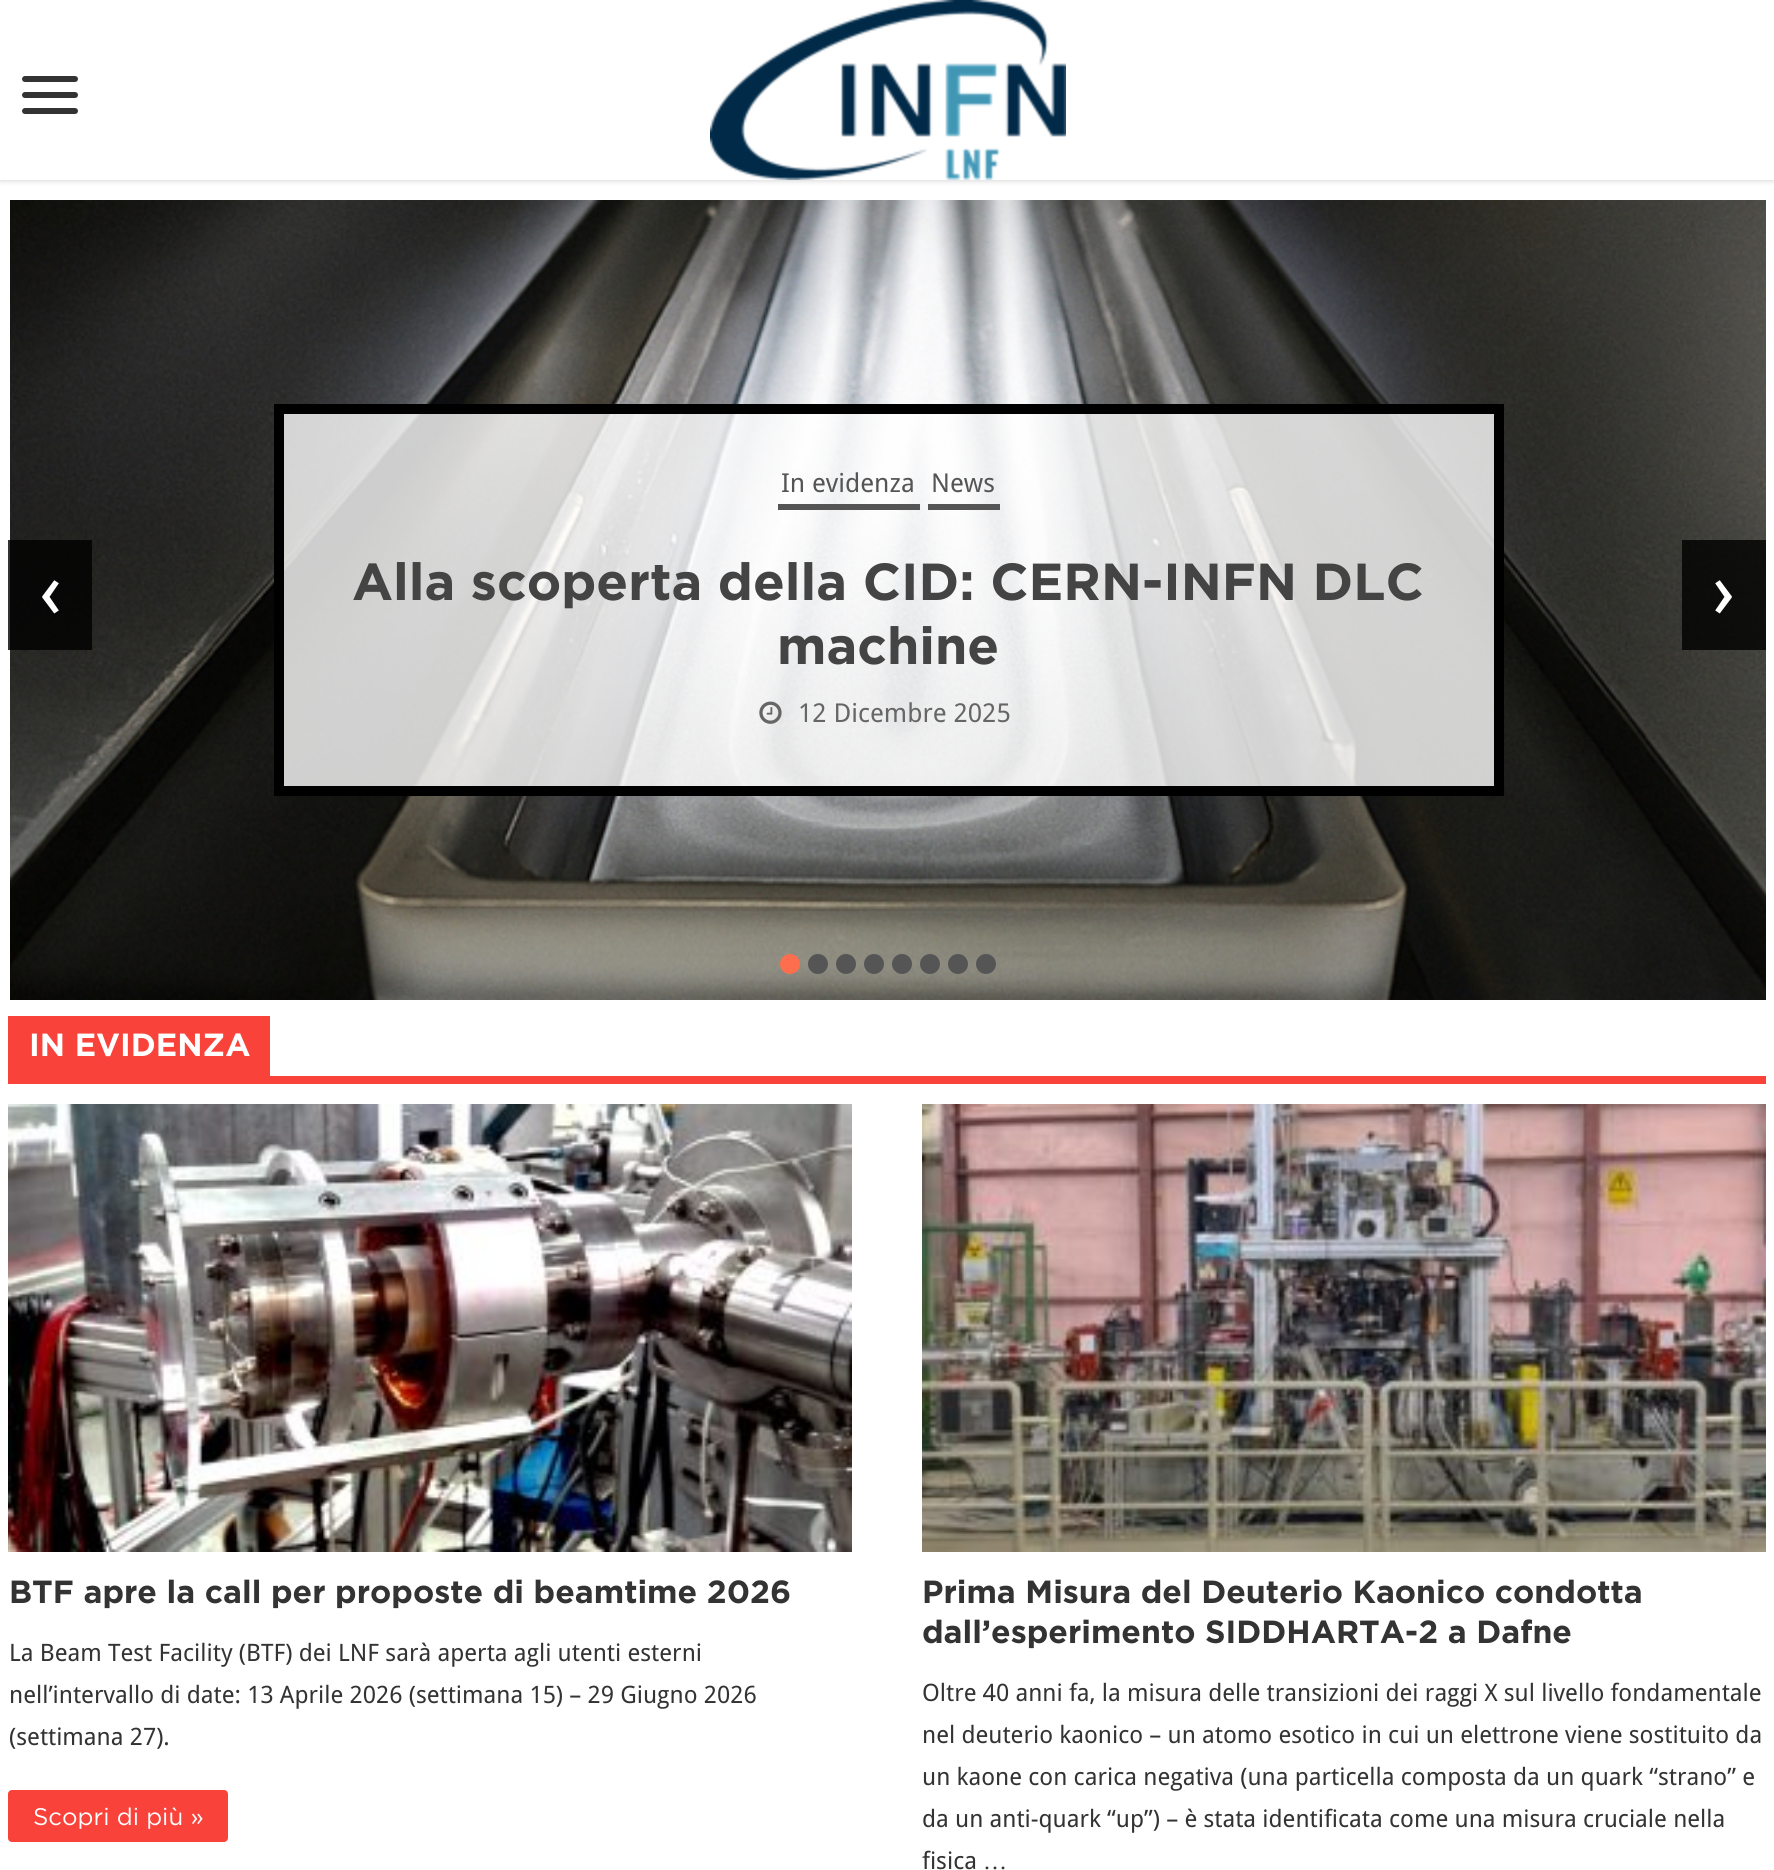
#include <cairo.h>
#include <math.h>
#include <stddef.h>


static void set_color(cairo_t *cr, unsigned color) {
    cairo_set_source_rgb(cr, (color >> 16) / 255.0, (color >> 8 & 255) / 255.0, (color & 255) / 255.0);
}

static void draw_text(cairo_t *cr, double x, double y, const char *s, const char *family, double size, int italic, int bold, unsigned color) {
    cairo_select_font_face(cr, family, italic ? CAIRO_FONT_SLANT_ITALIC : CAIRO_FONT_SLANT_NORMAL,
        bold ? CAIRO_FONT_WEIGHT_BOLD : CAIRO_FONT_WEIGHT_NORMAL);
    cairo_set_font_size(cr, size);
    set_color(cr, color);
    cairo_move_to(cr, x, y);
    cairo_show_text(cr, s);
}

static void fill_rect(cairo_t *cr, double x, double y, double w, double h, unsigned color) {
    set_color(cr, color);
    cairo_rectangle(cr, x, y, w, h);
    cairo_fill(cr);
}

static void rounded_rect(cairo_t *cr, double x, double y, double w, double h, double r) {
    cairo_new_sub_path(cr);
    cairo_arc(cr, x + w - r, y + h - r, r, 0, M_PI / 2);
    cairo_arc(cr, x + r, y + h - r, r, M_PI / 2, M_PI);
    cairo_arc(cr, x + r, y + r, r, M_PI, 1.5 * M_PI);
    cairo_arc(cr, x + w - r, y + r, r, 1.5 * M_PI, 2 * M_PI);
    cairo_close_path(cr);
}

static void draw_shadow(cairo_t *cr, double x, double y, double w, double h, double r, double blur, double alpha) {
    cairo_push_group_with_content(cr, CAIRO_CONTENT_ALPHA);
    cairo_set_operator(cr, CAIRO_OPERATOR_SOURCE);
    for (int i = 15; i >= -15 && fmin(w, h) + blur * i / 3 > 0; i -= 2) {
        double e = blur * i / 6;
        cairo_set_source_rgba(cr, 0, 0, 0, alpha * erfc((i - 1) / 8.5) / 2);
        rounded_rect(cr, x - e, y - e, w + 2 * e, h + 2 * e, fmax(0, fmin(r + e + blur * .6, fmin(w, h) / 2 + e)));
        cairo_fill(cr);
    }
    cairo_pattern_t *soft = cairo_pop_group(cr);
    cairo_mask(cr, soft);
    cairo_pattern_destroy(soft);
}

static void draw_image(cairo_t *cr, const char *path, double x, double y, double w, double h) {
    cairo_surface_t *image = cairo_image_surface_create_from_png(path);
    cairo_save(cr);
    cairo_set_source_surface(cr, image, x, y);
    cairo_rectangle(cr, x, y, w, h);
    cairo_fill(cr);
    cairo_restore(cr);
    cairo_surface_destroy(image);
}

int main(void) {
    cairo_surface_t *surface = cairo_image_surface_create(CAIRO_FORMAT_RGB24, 1774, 1870);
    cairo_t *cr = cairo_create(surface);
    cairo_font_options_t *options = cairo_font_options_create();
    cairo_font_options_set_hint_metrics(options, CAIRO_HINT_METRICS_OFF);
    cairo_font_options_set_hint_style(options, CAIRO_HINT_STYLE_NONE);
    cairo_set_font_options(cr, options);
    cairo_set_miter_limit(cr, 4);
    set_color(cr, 0xFFFFFF);
    cairo_paint(cr);
    cairo_save(cr);
    cairo_rectangle(cr, 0, 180, 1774, 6);
    cairo_clip(cr);
    set_color(cr, 0xCACACA);
    draw_shadow(cr, 0, 0, 1774, 180, 0, 3, 1);
    cairo_restore(cr);
    set_color(cr, 0x333333);
    rounded_rect(cr, 22, 76, 56, 6, 3);
    cairo_fill(cr);
    rounded_rect(cr, 22, 92, 56, 6, 3);
    cairo_fill(cr);
    rounded_rect(cr, 22, 108, 56, 6, 3);
    cairo_fill(cr);
    draw_image(cr, "assets/img1.png", 710, 0, 356, 180);
    draw_image(cr, "assets/img2.png", 10, 200, 1756, 800);
    cairo_set_source_rgba(cr, 1, 1, 1, 0.8);
    cairo_rectangle(cr, 279, 409, 1220, 382);
    cairo_fill_preserve(cr);
    set_color(cr, 0x000000);
    cairo_set_line_width(cr, 10);
    cairo_stroke(cr);
    fill_rect(cr, 778, 504, 142, 6, 0x555555);
    draw_text(cr, 781, 492, "In evidenza", "Droid Sans", 26, 0, 0, 0x555555);
    fill_rect(cr, 928, 504, 72, 6, 0x555555);
    draw_text(cr, 931, 492, "News", "Droid Sans", 26, 0, 0, 0x555555);
    draw_text(cr, 352, 600, "Alla scoperta della CID: CERN-INFN DLC", "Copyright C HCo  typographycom", 52, 0, 0, 0x444444);
    draw_text(cr, 777, 664, "machine", "Copyright C HCo  typographycom", 52, 0, 0, 0x444444);
    draw_image(cr, "assets/img3.png", 759, 701, 23, 23);
    draw_text(cr, 798, 722, "12 Dicembre 2025", "Droid Sans", 26, 0, 0, 0x666666);
    cairo_set_source_rgba(cr, 0, 0, 0, 0.8);
    cairo_rectangle(cr, 8, 540, 84, 110);
    cairo_fill(cr);
    draw_text(cr, 39, 618, "‹", "Droid Sans", 80, 0, 0, 0xFFFFFF);
    cairo_set_source_rgba(cr, 0, 0, 0, 0.8);
    cairo_rectangle(cr, 1682, 540, 84, 110);
    cairo_fill(cr);
    draw_text(cr, 1712, 618, "›", "Droid Sans", 80, 0, 0, 0xFFFFFF);
    set_color(cr, 0xFD6E4F);
    cairo_new_path(cr);
    cairo_arc(cr, 790, 964, 10, 0, 2 * M_PI);
    cairo_fill(cr);
    set_color(cr, 0x555555);
    cairo_arc(cr, 818, 964, 10, 0, 2 * M_PI);
    cairo_fill(cr);
    cairo_arc(cr, 846, 964, 10, 0, 2 * M_PI);
    cairo_fill(cr);
    cairo_arc(cr, 874, 964, 10, 0, 2 * M_PI);
    cairo_fill(cr);
    cairo_arc(cr, 902, 964, 10, 0, 2 * M_PI);
    cairo_fill(cr);
    cairo_arc(cr, 930, 964, 10, 0, 2 * M_PI);
    cairo_fill(cr);
    cairo_arc(cr, 958, 964, 10, 0, 2 * M_PI);
    cairo_fill(cr);
    cairo_arc(cr, 986, 964, 10, 0, 2 * M_PI);
    cairo_fill(cr);
    fill_rect(cr, 8, 1076, 1758, 8, 0xF9423A);
    fill_rect(cr, 8, 1016, 262, 60, 0xF9423A);
    draw_text(cr, 29, 1056, "IN EVIDENZA", "Copyright C HCo  typographycom", 32, 0, 0, 0xFFFFFF);
    draw_image(cr, "assets/img4.png", 8, 1104, 844, 448);
    draw_text(cr, 9, 1603, "BTF apre la call per proposte di beamtime 2026", "Copyright C HCo  typographycom", 32, 0, 0, 0x333333);
    draw_text(cr, 9, 1661, "La Beam Test Facility (BTF) dei LNF sarà aperta agli utenti esterni", "Droid Sans", 24, 0, 0, 0x333333);
    draw_text(cr, 9, 1703, "nell’intervallo di date: 13 Aprile 2026 (settimana 15) – 29 Giugno 2026", "Droid Sans", 24, 0, 0, 0x333333);
    draw_text(cr, 9, 1745, "(settimana 27).", "Droid Sans", 24, 0, 0, 0x333333);
    set_color(cr, 0xF9423A);
    rounded_rect(cr, 8, 1790, 220, 52, 4);
    cairo_fill(cr);
    draw_text(cr, 33, 1825, "Scopri di più »", "Copyright C HCo  typographycom Light", 24, 0, 0, 0xFFFFFF);
    draw_image(cr, "assets/img5.png", 922, 1104, 844, 448);
    draw_text(cr, 922, 1603, "Prima Misura del Deuterio Kaonico condotta", "Copyright C HCo  typographycom", 32, 0, 0, 0x333333);
    draw_text(cr, 922, 1643, "dall’esperimento SIDDHARTA-2 a Dafne", "Copyright C HCo  typographycom", 32, 0, 0, 0x333333);
    draw_text(cr, 922, 1701, "Oltre 40 anni fa, la misura delle transizioni dei raggi X sul livello fondamentale", "Droid Sans", 24, 0, 0, 0x333333);
    draw_text(cr, 922, 1743, "nel deuterio kaonico – un atomo esotico in cui un elettrone viene sostituito da", "Droid Sans", 24, 0, 0, 0x333333);
    draw_text(cr, 922, 1785, "un kaone con carica negativa (una particella composta da un quark “strano” e", "Droid Sans", 24, 0, 0, 0x333333);
    draw_text(cr, 922, 1827, "da un anti-quark “up”) – è stata identificata come una misura cruciale nella", "Droid Sans", 24, 0, 0, 0x333333);
    draw_text(cr, 922, 1869, "fisica", "Droid Sans", 24, 0, 0, 0x333333);
    draw_text(cr, 983, 1869, "…", "Liberation Serif", 24, 0, 0, 0x333333);
    cairo_surface_write_to_png(surface, "output.png");
    cairo_font_options_destroy(options);
    cairo_destroy(cr);
    cairo_surface_destroy(surface);
    return 0;
}
